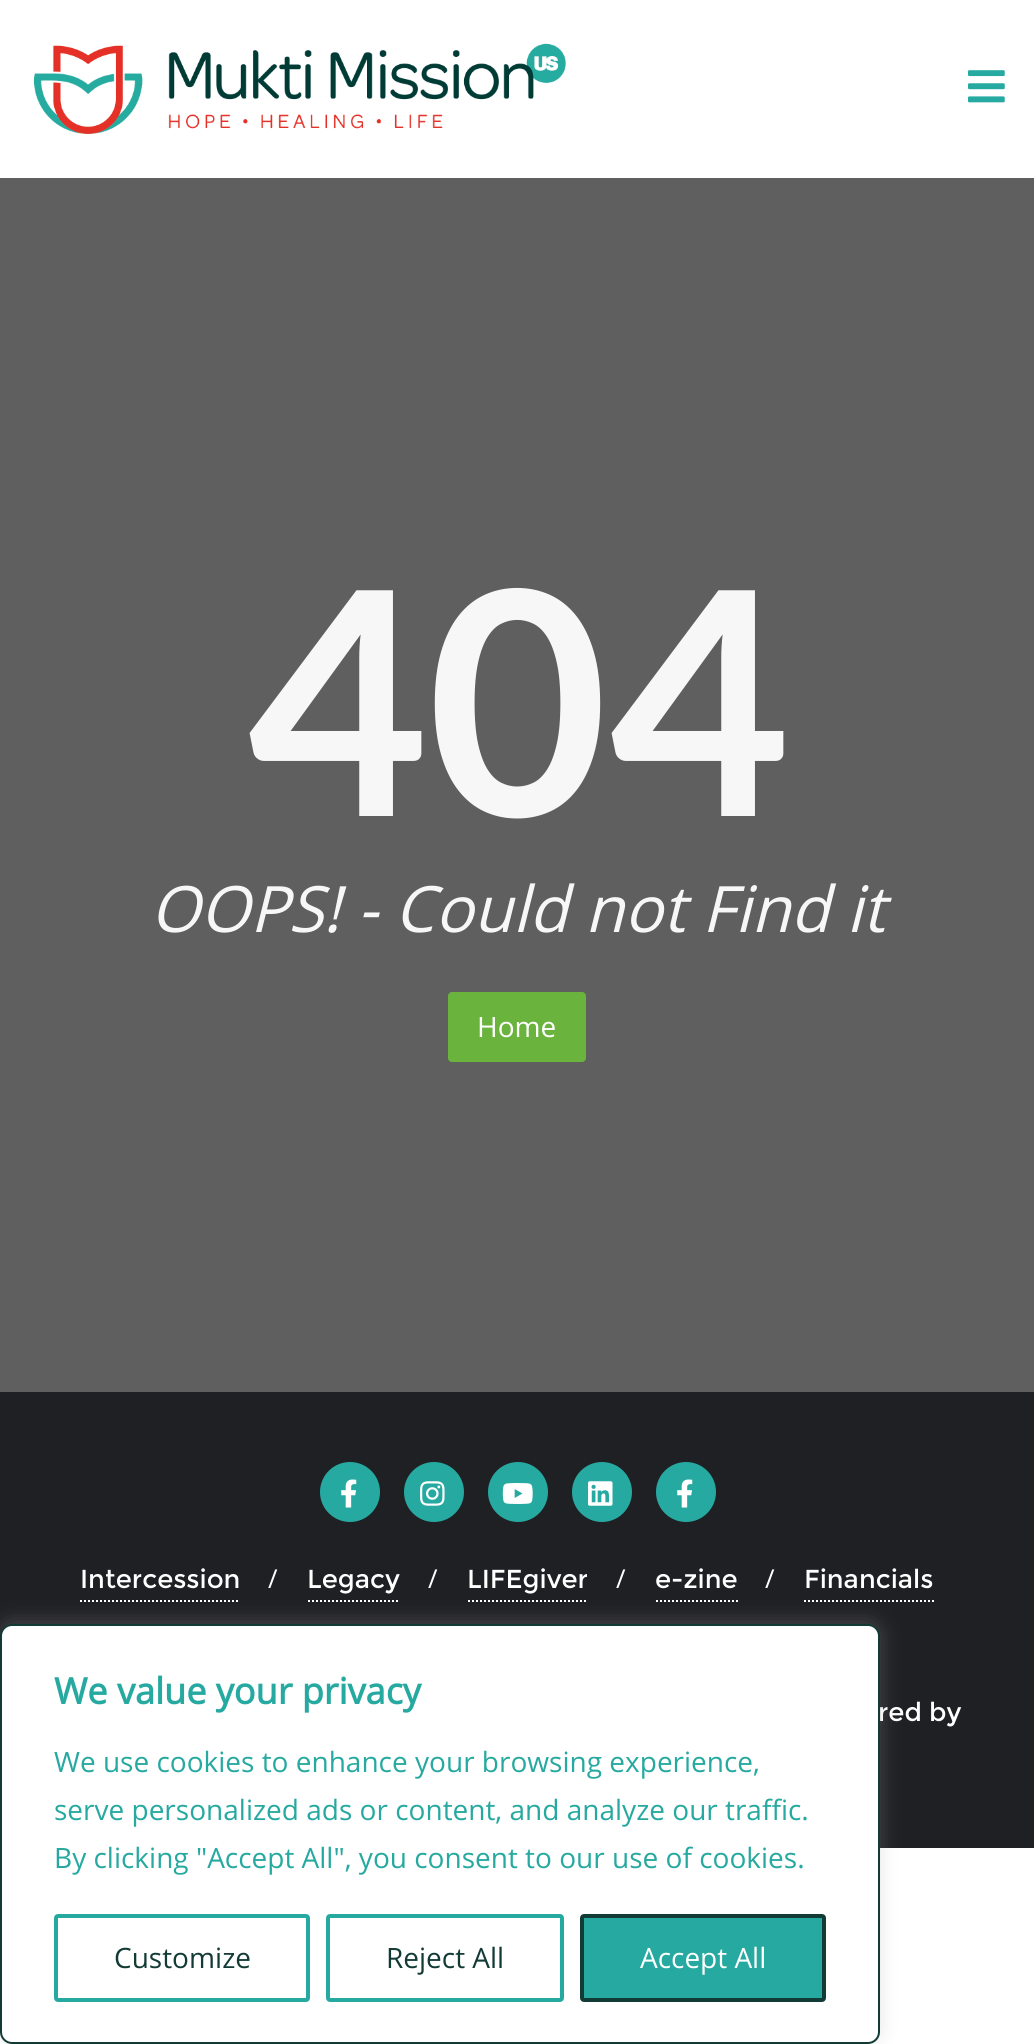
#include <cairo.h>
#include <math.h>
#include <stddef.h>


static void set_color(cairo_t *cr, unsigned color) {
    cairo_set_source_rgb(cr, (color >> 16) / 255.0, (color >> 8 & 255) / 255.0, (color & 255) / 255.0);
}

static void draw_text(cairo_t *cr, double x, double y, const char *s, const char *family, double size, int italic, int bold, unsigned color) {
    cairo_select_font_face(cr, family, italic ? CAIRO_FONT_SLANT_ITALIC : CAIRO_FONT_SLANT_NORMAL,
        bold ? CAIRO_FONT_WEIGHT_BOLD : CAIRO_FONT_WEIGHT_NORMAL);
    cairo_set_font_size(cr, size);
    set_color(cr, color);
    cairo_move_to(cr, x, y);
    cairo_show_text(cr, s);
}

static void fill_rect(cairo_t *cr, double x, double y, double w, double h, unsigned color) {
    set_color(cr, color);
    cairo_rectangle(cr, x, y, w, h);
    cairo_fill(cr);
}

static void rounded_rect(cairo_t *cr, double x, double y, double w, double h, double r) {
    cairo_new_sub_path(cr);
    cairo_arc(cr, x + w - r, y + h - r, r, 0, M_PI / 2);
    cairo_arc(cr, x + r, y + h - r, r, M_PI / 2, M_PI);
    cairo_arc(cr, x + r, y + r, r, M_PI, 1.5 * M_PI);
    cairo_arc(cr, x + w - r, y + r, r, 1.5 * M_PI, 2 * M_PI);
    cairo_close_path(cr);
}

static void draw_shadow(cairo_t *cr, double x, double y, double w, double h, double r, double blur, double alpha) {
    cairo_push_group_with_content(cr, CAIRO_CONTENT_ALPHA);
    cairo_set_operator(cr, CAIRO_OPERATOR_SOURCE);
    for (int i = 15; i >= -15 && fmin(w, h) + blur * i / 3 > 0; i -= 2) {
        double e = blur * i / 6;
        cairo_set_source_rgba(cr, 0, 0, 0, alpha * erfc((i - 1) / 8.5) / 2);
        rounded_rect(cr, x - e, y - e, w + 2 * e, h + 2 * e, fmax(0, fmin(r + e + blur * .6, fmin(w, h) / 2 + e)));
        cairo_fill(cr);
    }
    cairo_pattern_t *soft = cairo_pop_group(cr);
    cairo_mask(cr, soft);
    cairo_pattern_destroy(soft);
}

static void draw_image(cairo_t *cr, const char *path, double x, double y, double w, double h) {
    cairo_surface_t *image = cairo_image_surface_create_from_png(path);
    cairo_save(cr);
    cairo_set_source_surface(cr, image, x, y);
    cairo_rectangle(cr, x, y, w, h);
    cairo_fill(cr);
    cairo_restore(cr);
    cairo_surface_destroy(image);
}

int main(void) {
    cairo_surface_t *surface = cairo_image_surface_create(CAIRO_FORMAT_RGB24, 1034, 2044);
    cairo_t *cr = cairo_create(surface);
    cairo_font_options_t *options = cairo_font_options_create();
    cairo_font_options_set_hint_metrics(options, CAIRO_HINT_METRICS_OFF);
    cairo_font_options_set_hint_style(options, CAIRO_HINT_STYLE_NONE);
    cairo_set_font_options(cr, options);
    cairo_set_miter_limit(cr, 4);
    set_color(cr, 0xFFFFFF);
    cairo_paint(cr);
    draw_image(cr, "assets/img1.png", 33, 43, 533, 91);
    draw_image(cr, "assets/img2.png", 968, 70, 37, 33);
    fill_rect(cr, 0, 178, 1034, 1214, 0x5F5F5F);
    draw_text(cr, 246, 816, "404", "Lato", 312, 0, 1, 0xF7F7F7);
    draw_text(cr, 150, 932, "OOPS! - Could not Find it", "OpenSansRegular", 64, 1, 0, 0xF7F7F7);
    set_color(cr, 0x6AB43E);
    rounded_rect(cr, 448, 992, 138, 70, 4);
    cairo_fill(cr);
    draw_text(cr, 477, 1037, "Home", "OpenSansRegular", 28, 0, 0, 0xFFFFFF);
    fill_rect(cr, 0, 1392, 1034, 456, 0x1F2024);
    set_color(cr, 0x26A9A0);
    cairo_new_path(cr);
    cairo_arc(cr, 350, 1492, 30, 0, 2 * M_PI);
    cairo_fill(cr);
    draw_image(cr, "assets/img3.png", 341, 1479, 16, 29);
    cairo_arc(cr, 434, 1492, 30, 0, 2 * M_PI);
    cairo_fill(cr);
    draw_image(cr, "assets/img4.png", 420, 1481, 25, 25);
    cairo_arc(cr, 518, 1492, 30, 0, 2 * M_PI);
    cairo_fill(cr);
    draw_image(cr, "assets/img5.png", 502, 1483, 31, 21);
    cairo_arc(cr, 602, 1492, 30, 0, 2 * M_PI);
    cairo_fill(cr);
    draw_image(cr, "assets/img6.png", 588, 1481, 25, 25);
    cairo_arc(cr, 686, 1492, 30, 0, 2 * M_PI);
    cairo_fill(cr);
    draw_image(cr, "assets/img3.png", 677, 1479, 16, 29);
    cairo_new_path(cr);
    cairo_move_to(cr, 80, 1601);
    cairo_line_to(cr, 240, 1601);
    set_color(cr, 0xFFFFFF);
    cairo_set_dash(cr, (double[]){2, 2}, 2, 0);
    cairo_stroke(cr);
    draw_text(cr, 80, 1588, "Intercession", "Montserrat", 26, 0, 0, 0xFFFFFF);
    draw_text(cr, 268, 1588, "/", "OpenSansRegular", 26, 0, 0, 0xFFFFFF);
    cairo_new_path(cr);
    cairo_move_to(cr, 308, 1601);
    cairo_line_to(cr, 400, 1601);
    cairo_stroke(cr);
    draw_text(cr, 307, 1588, "Legacy", "Montserrat", 26, 0, 0, 0xFFFFFF);
    draw_text(cr, 428, 1588, "/", "OpenSansRegular", 26, 0, 0, 0xFFFFFF);
    cairo_new_path(cr);
    cairo_move_to(cr, 468, 1601);
    cairo_line_to(cr, 588, 1601);
    cairo_stroke(cr);
    draw_text(cr, 467, 1588, "LIFEgiver", "Montserrat", 26, 0, 0, 0xFFFFFF);
    draw_text(cr, 616, 1588, "/", "OpenSansRegular", 26, 0, 0, 0xFFFFFF);
    cairo_new_path(cr);
    cairo_move_to(cr, 656, 1601);
    cairo_line_to(cr, 738, 1601);
    cairo_stroke(cr);
    draw_text(cr, 655, 1588, "e-zine", "Montserrat", 26, 0, 0, 0xFFFFFF);
    draw_text(cr, 765, 1588, "/", "OpenSansRegular", 26, 0, 0, 0xFFFFFF);
    cairo_new_path(cr);
    cairo_move_to(cr, 804, 1601);
    cairo_line_to(cr, 934, 1601);
    cairo_stroke(cr);
    draw_text(cr, 804, 1588, "Financials", "Montserrat", 26, 0, 0, 0xFFFFFF);
    draw_text(cr, 878, 1721, "red by", "Montserrat", 26, 0, 0, 0xFFFFFF);
    set_color(cr, 0xACABAB);
    draw_shadow(cr, 0, 1622, 880, 420, 12, 10, 0.3);
    set_color(cr, 0xFFFFFF);
    rounded_rect(cr, 1, 1625, 878, 418, 11);
    cairo_fill_preserve(cr);
    set_color(cr, 0x133B36);
    cairo_set_dash(cr, NULL, 0, 0);
    cairo_stroke(cr);
    draw_text(cr, 54, 1704, "We value your privacy", "OpenSansRegular", 36, 0, 1, 0x26A9A0);
    draw_text(cr, 54, 1772, "We use cookies to enhance your browsing experience,", "OpenSansRegular", 28, 0, 0, 0x26A9A0);
    draw_text(cr, 54, 1820, "serve personalized ads or content, and analyze our traffic.", "OpenSansRegular", 28, 0, 0, 0x26A9A0);
    draw_text(cr, 54, 1868, "By clicking \"Accept All\", you consent to our use of cookies.", "OpenSansRegular", 28, 0, 0, 0x26A9A0);
    rounded_rect(cr, 56, 1916, 252, 84, 2);
    cairo_set_line_width(cr, 4);
    cairo_stroke(cr);
    draw_text(cr, 114, 1968, "Customize", "OpenSansRegular", 28, 0, 0, 0x133B36);
    rounded_rect(cr, 328, 1916, 234, 84, 2);
    set_color(cr, 0x26A9A0);
    cairo_stroke(cr);
    draw_text(cr, 386, 1968, "Reject All", "OpenSansRegular", 28, 0, 0, 0x133B36);
    set_color(cr, 0x26A9A0);
    rounded_rect(cr, 582, 1916, 242, 84, 2);
    cairo_fill_preserve(cr);
    set_color(cr, 0x133B36);
    cairo_stroke(cr);
    draw_text(cr, 640, 1968, "Accept All", "OpenSansRegular", 28, 0, 0, 0xFFFFFF);
    cairo_surface_write_to_png(surface, "output.png");
    cairo_font_options_destroy(options);
    cairo_destroy(cr);
    cairo_surface_destroy(surface);
    return 0;
}
